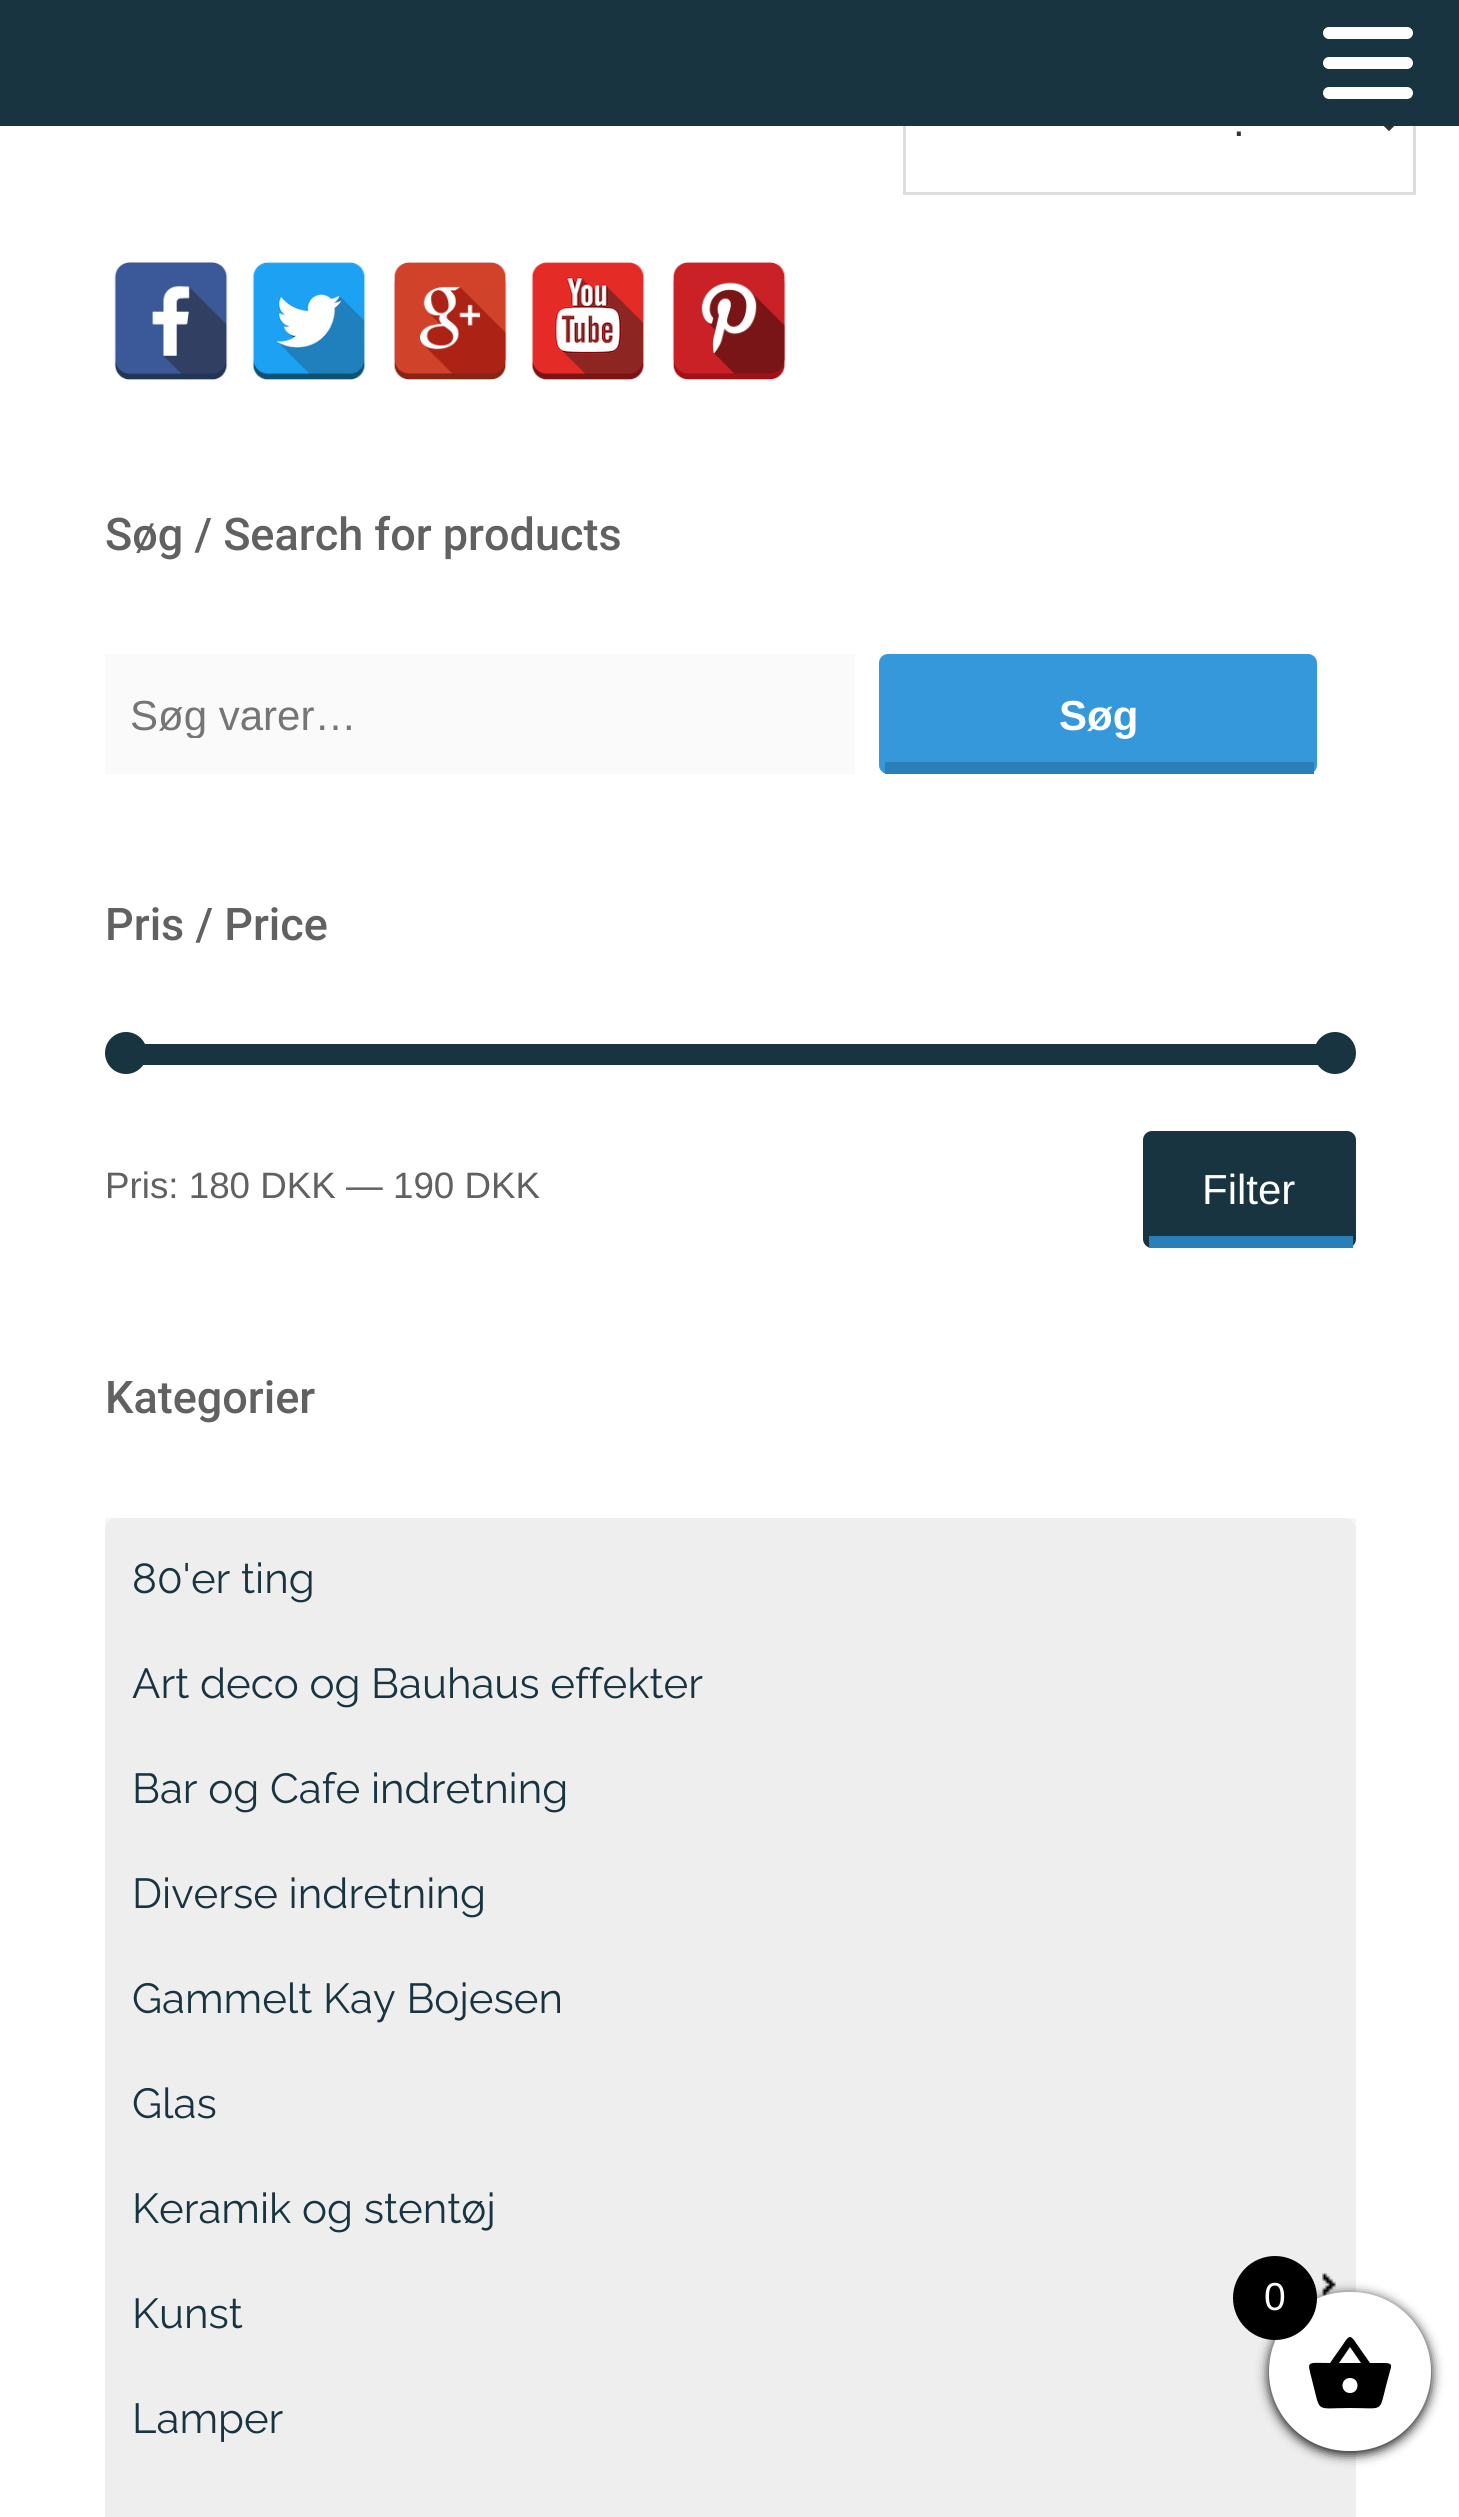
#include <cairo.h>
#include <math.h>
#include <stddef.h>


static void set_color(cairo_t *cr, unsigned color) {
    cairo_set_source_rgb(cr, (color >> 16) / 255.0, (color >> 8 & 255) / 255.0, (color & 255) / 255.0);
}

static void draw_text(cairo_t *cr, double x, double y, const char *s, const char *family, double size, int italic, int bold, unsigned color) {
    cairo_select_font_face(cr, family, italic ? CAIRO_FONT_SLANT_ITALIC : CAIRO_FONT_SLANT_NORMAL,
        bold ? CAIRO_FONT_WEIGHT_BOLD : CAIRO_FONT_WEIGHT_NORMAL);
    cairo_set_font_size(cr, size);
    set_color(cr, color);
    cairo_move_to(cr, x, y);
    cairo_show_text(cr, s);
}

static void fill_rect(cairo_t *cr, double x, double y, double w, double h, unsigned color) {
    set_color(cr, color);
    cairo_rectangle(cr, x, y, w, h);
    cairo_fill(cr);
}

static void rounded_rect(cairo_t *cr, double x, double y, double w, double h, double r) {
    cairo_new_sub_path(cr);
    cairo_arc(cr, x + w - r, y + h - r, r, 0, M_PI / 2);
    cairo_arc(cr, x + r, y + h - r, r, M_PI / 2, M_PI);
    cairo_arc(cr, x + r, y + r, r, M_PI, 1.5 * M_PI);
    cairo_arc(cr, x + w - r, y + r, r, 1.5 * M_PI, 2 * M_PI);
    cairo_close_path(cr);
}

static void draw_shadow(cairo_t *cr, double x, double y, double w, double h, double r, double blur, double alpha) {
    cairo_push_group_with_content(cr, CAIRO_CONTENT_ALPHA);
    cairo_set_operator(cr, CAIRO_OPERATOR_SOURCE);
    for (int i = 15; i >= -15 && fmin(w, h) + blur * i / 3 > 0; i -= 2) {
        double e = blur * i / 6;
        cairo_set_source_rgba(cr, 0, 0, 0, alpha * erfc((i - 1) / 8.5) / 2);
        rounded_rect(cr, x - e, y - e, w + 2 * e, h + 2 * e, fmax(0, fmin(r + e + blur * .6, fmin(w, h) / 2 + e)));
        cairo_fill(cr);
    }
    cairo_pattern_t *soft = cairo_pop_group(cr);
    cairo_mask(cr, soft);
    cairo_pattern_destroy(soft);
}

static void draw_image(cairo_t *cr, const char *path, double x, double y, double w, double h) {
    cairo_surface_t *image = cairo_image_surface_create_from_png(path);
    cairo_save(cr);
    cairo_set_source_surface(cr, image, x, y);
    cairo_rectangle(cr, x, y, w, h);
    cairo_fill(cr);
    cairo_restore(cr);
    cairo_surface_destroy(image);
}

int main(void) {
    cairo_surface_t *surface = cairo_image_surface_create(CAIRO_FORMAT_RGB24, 1459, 2517);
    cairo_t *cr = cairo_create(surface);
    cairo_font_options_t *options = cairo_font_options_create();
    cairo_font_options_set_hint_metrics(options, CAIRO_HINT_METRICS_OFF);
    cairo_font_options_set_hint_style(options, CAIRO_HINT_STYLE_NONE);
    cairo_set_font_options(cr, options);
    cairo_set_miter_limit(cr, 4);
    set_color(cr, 0xFFFFFF);
    cairo_paint(cr);
    cairo_rectangle(cr, 904.5, 46.5, 510, 147);
    set_color(cr, 0xDDDDDD);
    cairo_set_line_width(cr, 3);
    cairo_stroke(cr);
    cairo_new_path(cr);
    cairo_move_to(cr, 1377, 115);
    cairo_line_to(cr, 1389, 127);
    cairo_line_to(cr, 1401, 115);
    set_color(cr, 0x333333);
    cairo_set_line_width(cr, 6);
    cairo_stroke(cr);
    fill_rect(cr, 0, 0, 1459, 126, 0x193441);
    set_color(cr, 0xFFFFFF);
    rounded_rect(cr, 1323, 27, 90, 12, 6);
    cairo_fill(cr);
    rounded_rect(cr, 1323, 57, 90, 12, 6);
    cairo_fill(cr);
    rounded_rect(cr, 1323, 87, 90, 12, 6);
    cairo_fill(cr);
    draw_text(cr, 1233, 136, ".", "Liberation Sans", 42, 0, 0, 0x333333);
    draw_image(cr, "assets/img1.png", 114, 262, 114, 118);
    draw_image(cr, "assets/img2.png", 252, 262, 114, 118);
    draw_image(cr, "assets/img3.png", 393, 262, 114, 118);
    draw_image(cr, "assets/img4.png", 531, 262, 114, 118);
    draw_image(cr, "assets/img5.png", 672, 262, 114, 118);
    draw_text(cr, 105, 550, "Søg / Search for products", "Roboto Medium", 45, 0, 0, 0x616161);
    fill_rect(cr, 105, 654, 750, 120, 0xFAFAFA);
    cairo_save(cr);
    cairo_rectangle(cr, 129, 690, 690, 48);
    cairo_clip(cr);
    draw_text(cr, 130, 730, "Søg varer…", "Liberation Sans", 42, 0, 0, 0x757575);
    cairo_restore(cr);
    set_color(cr, 0x3498DB);
    rounded_rect(cr, 879, 654, 438, 120, 9);
    cairo_fill(cr);
    fill_rect(cr, 885, 762, 429, 12, 0x2980B9);
    draw_text(cr, 1059, 730, "Søg", "Liberation Sans", 42, 0, 1, 0xFFFFFF);
    draw_text(cr, 105, 940, "Pris / Price", "Roboto Medium", 45, 0, 0, 0x616161);
    fill_rect(cr, 143, 1044, 1175, 21, 0x193441);
    cairo_new_path(cr);
    cairo_arc(cr, 126, 1053, 21, 0, 2 * M_PI);
    cairo_fill(cr);
    cairo_arc(cr, 1335, 1053, 21, 0, 2 * M_PI);
    cairo_fill(cr);
    draw_text(cr, 105, 1198, "Pris: 180 DKK — 190 DKK", "Liberation Sans", 36.75, 0, 0, 0x616161);
    set_color(cr, 0x193441);
    rounded_rect(cr, 1143, 1131, 213, 117, 9);
    cairo_fill(cr);
    fill_rect(cr, 1149, 1236, 204, 12, 0x2980B9);
    draw_text(cr, 1202, 1204, "Filter", "Liberation Sans", 42, 0, 0, 0xFFFFFF);
    draw_text(cr, 105, 1413, "Kategorier", "Roboto Medium", 45, 0, 0, 0x616161);
    fill_rect(cr, 105, 1518, 1251, 12, 0xF5F5F5);
    set_color(cr, 0xEEEEEE);
    cairo_new_path(cr);
    cairo_move_to(cr, 117, 1518);
    cairo_line_to(cr, 1344, 1518);
    cairo_curve_to(cr, 1350.5, 1518, 1356, 1523.5, 1356, 1530);
    cairo_line_to(cr, 1356, 1626);
    cairo_line_to(cr, 105, 1626);
    cairo_line_to(cr, 105, 1530);
    cairo_curve_to(cr, 105, 1523.5, 110.5, 1518, 117, 1518);
    cairo_close_path(cr);
    cairo_fill(cr);
    draw_text(cr, 132, 1593, "80'er ting", "Raleway", 42, 0, 0, 0x193441);
    fill_rect(cr, 105, 1626, 1251, 891, 0xEEEEEE);
    draw_text(cr, 132, 1698, "Art deco og Bauhaus effekter", "Raleway", 42, 0, 0, 0x193441);
    draw_text(cr, 132, 1803, "Bar og Cafe indretning", "Raleway", 42, 0, 0, 0x193441);
    draw_text(cr, 132, 1908, "Diverse indretning", "Raleway", 42, 0, 0, 0x193441);
    draw_text(cr, 132, 2013, "Gammelt Kay Bojesen", "Raleway", 42, 0, 0, 0x193441);
    draw_text(cr, 132, 2118, "Glas", "Raleway", 42, 0, 0, 0x193441);
    draw_text(cr, 132, 2223, "Keramik og stentøj", "Raleway", 42, 0, 0, 0x193441);
    draw_image(cr, "assets/img6.png", 1322, 2273, 14, 23);
    draw_text(cr, 132, 2328, "Kunst", "Raleway", 42, 0, 0, 0x193441);
    draw_text(cr, 132, 2433, "Lamper", "Raleway", 42, 0, 0, 0x193441);
    set_color(cr, 0x000000);
    draw_shadow(cr, 1269, 2295, 162, 159, 79.5, 6, 1);
    set_color(cr, 0xFFFFFF);
    rounded_rect(cr, 1269, 2292, 162, 159, 79.5);
    cairo_fill(cr);
    set_color(cr, 0x000000);
    cairo_arc(cr, 1275, 2298, 42, 0, 2 * M_PI);
    cairo_fill(cr);
    draw_text(cr, 1264, 2310, "0", "Liberation Sans", 39, 0, 0, 0xFFFFFF);
    set_color(cr, 0x000000);
    cairo_new_path(cr);
    cairo_move_to(cr, 1350, 2393);
    cairo_curve_to(cr, 1360, 2393, 1360, 2378, 1350, 2378);
    cairo_curve_to(cr, 1340, 2378, 1340, 2393, 1350, 2393);
    cairo_close_path(cr);
    cairo_move_to(cr, 1339, 2363);
    cairo_line_to(cr, 1361, 2363);
    cairo_line_to(cr, 1350, 2347);
    cairo_close_path(cr);
    cairo_move_to(cr, 1370, 2363);
    cairo_line_to(cr, 1384, 2363);
    cairo_curve_to(cr, 1392, 2363, 1392, 2365, 1390, 2371);
    cairo_line_to(cr, 1386, 2386);
    cairo_curve_to(cr, 1379, 2413, 1384, 2408, 1350, 2408);
    cairo_curve_to(cr, 1314, 2408, 1321, 2414, 1312, 2380);
    cairo_curve_to(cr, 1307, 2360, 1306, 2363, 1330, 2363);
    cairo_line_to(cr, 1344, 2343);
    cairo_curve_to(cr, 1349, 2335, 1351, 2335, 1356, 2343);
    cairo_close_path(cr);
    cairo_fill(cr);
    cairo_surface_write_to_png(surface, "output.png");
    cairo_font_options_destroy(options);
    cairo_destroy(cr);
    cairo_surface_destroy(surface);
    return 0;
}
